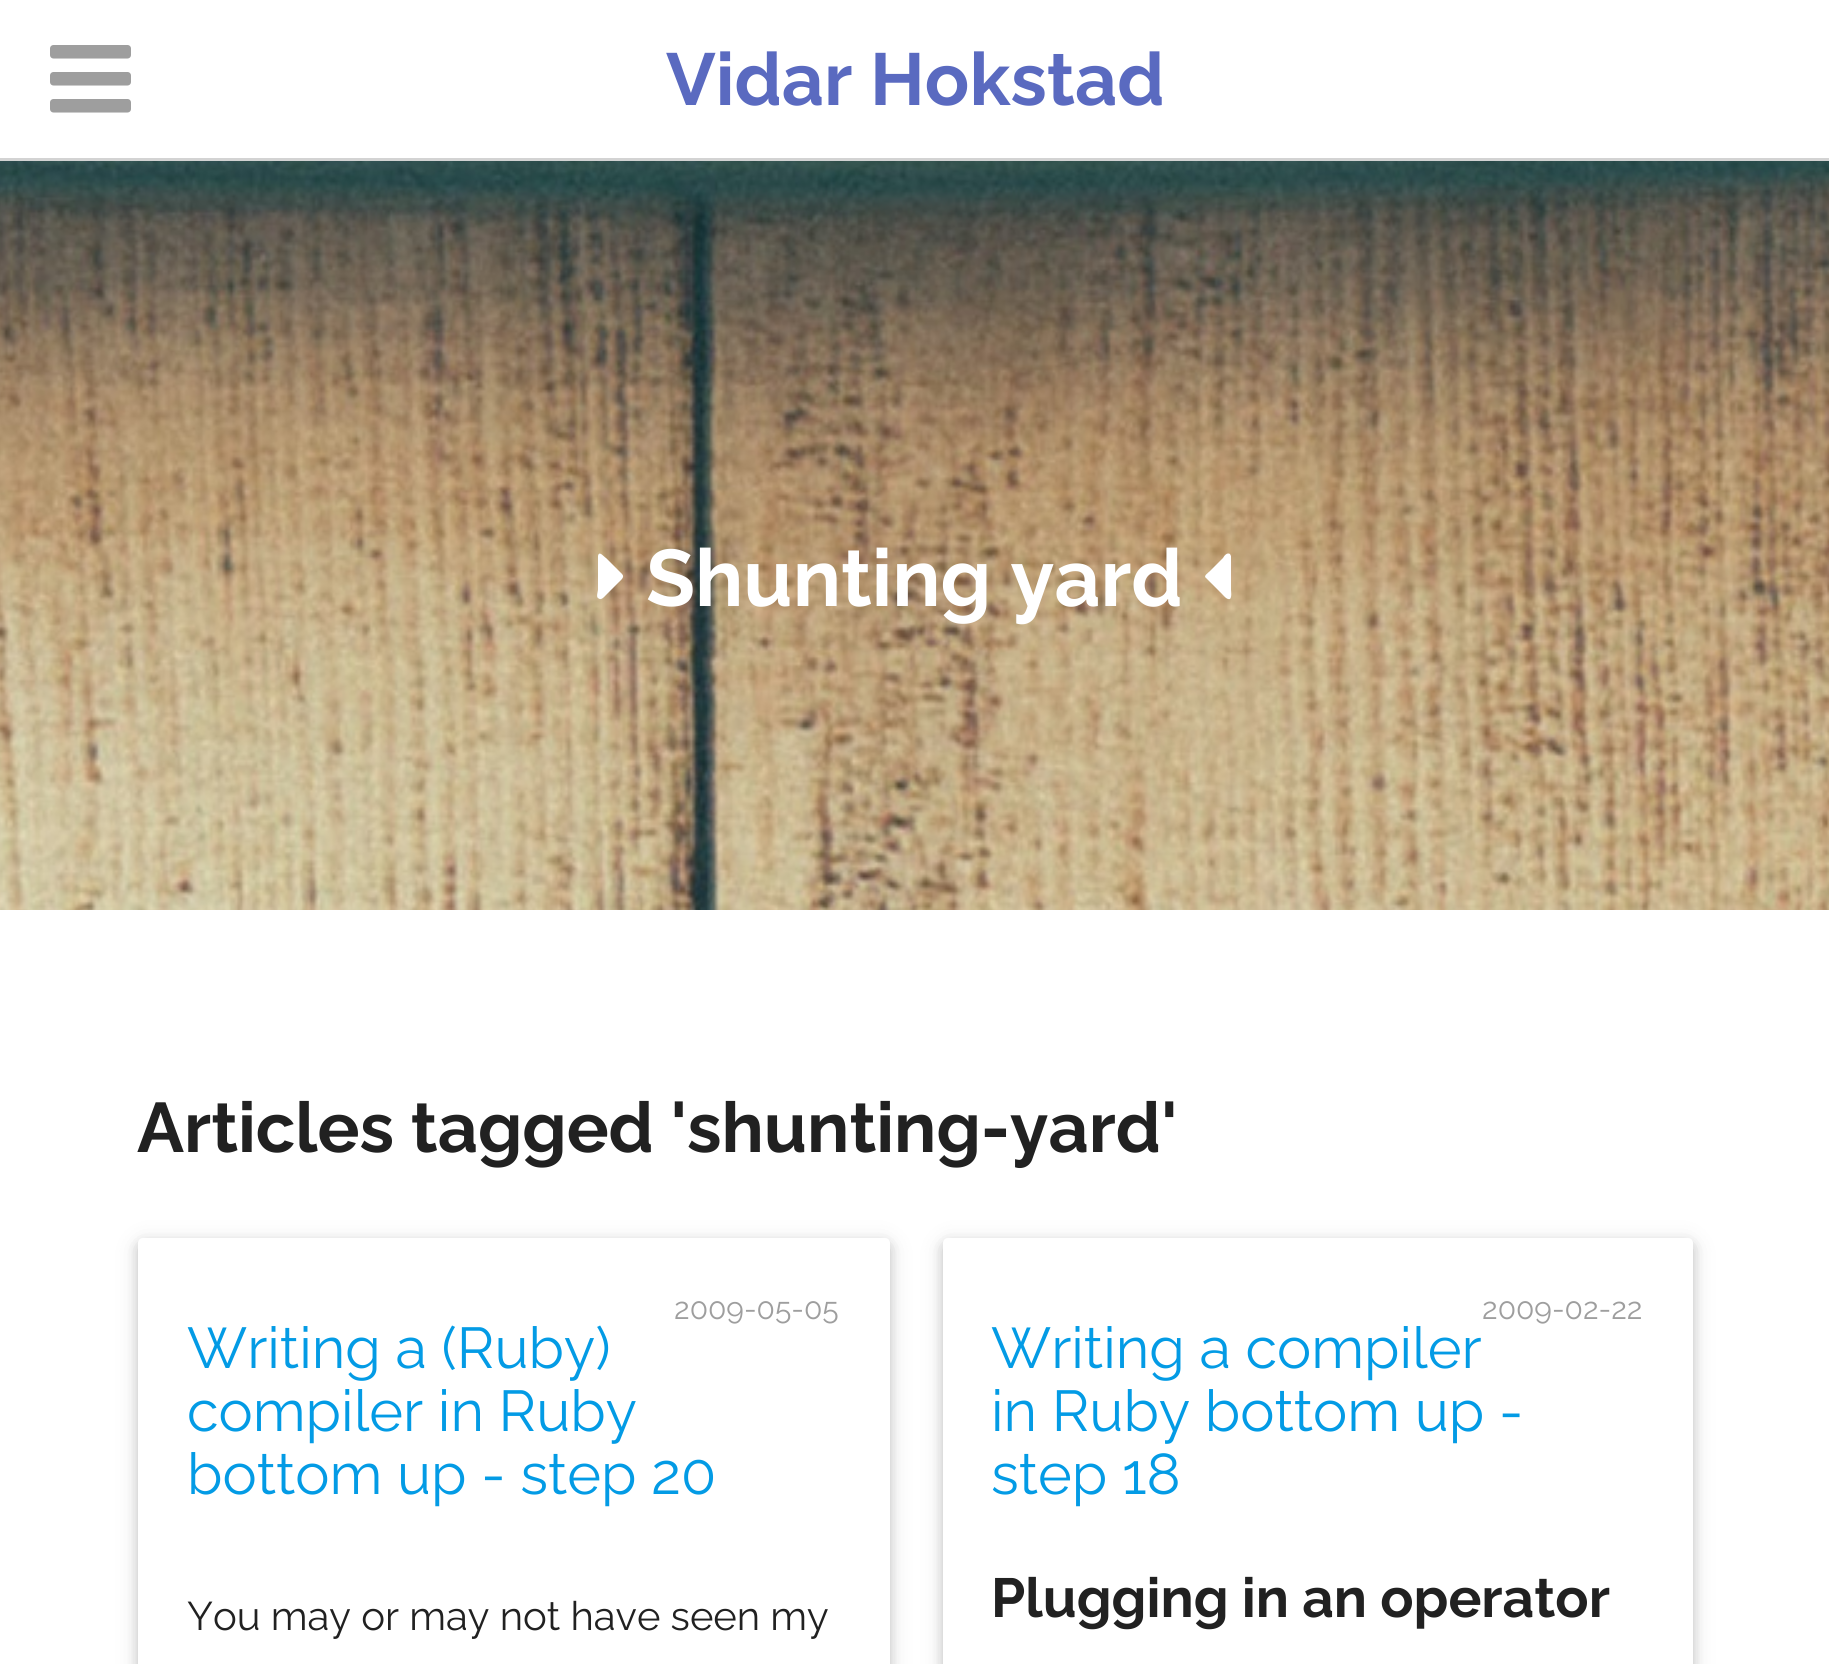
#include <cairo.h>
#include <math.h>
#include <stddef.h>


static void set_color(cairo_t *cr, unsigned color) {
    cairo_set_source_rgb(cr, (color >> 16) / 255.0, (color >> 8 & 255) / 255.0, (color & 255) / 255.0);
}

static void draw_text(cairo_t *cr, double x, double y, const char *s, const char *family, double size, int italic, int bold, unsigned color) {
    cairo_select_font_face(cr, family, italic ? CAIRO_FONT_SLANT_ITALIC : CAIRO_FONT_SLANT_NORMAL,
        bold ? CAIRO_FONT_WEIGHT_BOLD : CAIRO_FONT_WEIGHT_NORMAL);
    cairo_set_font_size(cr, size);
    set_color(cr, color);
    cairo_move_to(cr, x, y);
    cairo_show_text(cr, s);
}

static void fill_rect(cairo_t *cr, double x, double y, double w, double h, unsigned color) {
    set_color(cr, color);
    cairo_rectangle(cr, x, y, w, h);
    cairo_fill(cr);
}

static void rounded_rect(cairo_t *cr, double x, double y, double w, double h, double r) {
    cairo_new_sub_path(cr);
    cairo_arc(cr, x + w - r, y + h - r, r, 0, M_PI / 2);
    cairo_arc(cr, x + r, y + h - r, r, M_PI / 2, M_PI);
    cairo_arc(cr, x + r, y + r, r, M_PI, 1.5 * M_PI);
    cairo_arc(cr, x + w - r, y + r, r, 1.5 * M_PI, 2 * M_PI);
    cairo_close_path(cr);
}

static void draw_shadow(cairo_t *cr, double x, double y, double w, double h, double r, double blur, double alpha) {
    cairo_push_group_with_content(cr, CAIRO_CONTENT_ALPHA);
    cairo_set_operator(cr, CAIRO_OPERATOR_SOURCE);
    for (int i = 15; i >= -15 && fmin(w, h) + blur * i / 3 > 0; i -= 2) {
        double e = blur * i / 6;
        cairo_set_source_rgba(cr, 0, 0, 0, alpha * erfc((i - 1) / 8.5) / 2);
        rounded_rect(cr, x - e, y - e, w + 2 * e, h + 2 * e, fmax(0, fmin(r + e + blur * .6, fmin(w, h) / 2 + e)));
        cairo_fill(cr);
    }
    cairo_pattern_t *soft = cairo_pop_group(cr);
    cairo_mask(cr, soft);
    cairo_pattern_destroy(soft);
}

static void draw_image(cairo_t *cr, const char *path, double x, double y, double w, double h) {
    cairo_surface_t *image = cairo_image_surface_create_from_png(path);
    cairo_save(cr);
    cairo_set_source_surface(cr, image, x, y);
    cairo_rectangle(cr, x, y, w, h);
    cairo_fill(cr);
    cairo_restore(cr);
    cairo_surface_destroy(image);
}

int main(void) {
    cairo_surface_t *surface = cairo_image_surface_create(CAIRO_FORMAT_RGB24, 1829, 1664);
    cairo_t *cr = cairo_create(surface);
    cairo_font_options_t *options = cairo_font_options_create();
    cairo_font_options_set_hint_metrics(options, CAIRO_HINT_METRICS_OFF);
    cairo_font_options_set_hint_style(options, CAIRO_HINT_STYLE_NONE);
    cairo_set_font_options(cr, options);
    cairo_set_miter_limit(cr, 4);
    set_color(cr, 0xFFFFFF);
    cairo_paint(cr);
    fill_rect(cr, 0, 158, 1829, 3, 0xD3D3D3);
    draw_image(cr, "assets/img1.png", 50, 45, 81, 68);
    draw_text(cr, 666, 105, "Vidar Hokstad", "Raleway", 73.5, 0, 1, 0x5A6AC0);
    draw_image(cr, "assets/img2.png", 0, 161, 1829, 749);
    set_color(cr, 0xFFFFFF);
    cairo_new_path(cr);
    cairo_move_to(cr, 622, 574);
    cairo_curve_to(cr, 625, 577, 621, 580, 619, 582);
    cairo_line_to(cr, 606, 595);
    cairo_curve_to(cr, 604, 597, 601, 601, 598, 598);
    cairo_curve_to(cr, 596, 597, 598, 591, 598, 590);
    cairo_line_to(cr, 598, 556);
    cairo_curve_to(cr, 599, 550, 604, 557, 606, 558);
    cairo_close_path(cr);
    cairo_fill(cr);
    draw_text(cr, 646, 606, "Shunting yard", "Raleway", 80, 0, 1, 0xFFFFFF);
    cairo_new_path(cr);
    cairo_move_to(cr, 1231, 556);
    cairo_line_to(cr, 1231, 590);
    cairo_curve_to(cr, 1231, 591, 1232, 597, 1230, 599);
    cairo_curve_to(cr, 1227, 600, 1224, 596, 1223, 595);
    cairo_line_to(cr, 1206, 578);
    cairo_curve_to(cr, 1203, 576, 1208, 573, 1210, 571);
    cairo_line_to(cr, 1223, 558);
    cairo_curve_to(cr, 1224, 556, 1227, 552, 1230, 554);
    cairo_close_path(cr);
    cairo_fill(cr);
    draw_text(cr, 137, 1152, "Articles tagged 'shunting-yard'", "Raleway", 70, 0, 1, 0x212121);
    set_color(cr, 0x000000);
    draw_shadow(cr, 138, 1243, 752, 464, 5, 12.5, 0.12);
    draw_shadow(cr, 138, 1243, 752, 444, 5, 6, 0.16);
    set_color(cr, 0xFFFFFF);
    rounded_rect(cr, 138, 1238, 752, 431, 5);
    cairo_fill(cr);
    draw_text(cr, 674, 1319, "2009-05-05", "Raleway", 30, 0, 0, 0x9E9E9E);
    draw_text(cr, 187, 1368, "Writing a (Ruby)", "Raleway", 57.5, 0, 0, 0x039BE5);
    draw_text(cr, 187, 1431, "compiler in Ruby", "Raleway", 57.5, 0, 0, 0x039BE5);
    draw_text(cr, 187, 1494, "bottom up - step 20", "Raleway", 57.5, 0, 0, 0x039BE5);
    draw_text(cr, 187, 1630, "You may or may not have seen my", "Raleway", 40, 0, 0, 0x212121);
    set_color(cr, 0x000000);
    draw_shadow(cr, 943, 1243, 750, 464, 5, 12.5, 0.12);
    draw_shadow(cr, 943, 1243, 750, 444, 5, 6, 0.16);
    set_color(cr, 0xFFFFFF);
    rounded_rect(cr, 943, 1238, 750, 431, 5);
    cairo_fill(cr);
    draw_text(cr, 1482, 1319, "2009-02-22", "Raleway", 30, 0, 0, 0x9E9E9E);
    draw_text(cr, 991, 1368, "Writing a compiler", "Raleway", 57.5, 0, 0, 0x039BE5);
    draw_text(cr, 991, 1431, "in Ruby bottom up -", "Raleway", 57.5, 0, 0, 0x039BE5);
    draw_text(cr, 991, 1494, "step 18", "Raleway", 57.5, 0, 0, 0x039BE5);
    draw_text(cr, 991, 1617, "Plugging in an operator", "Raleway", 55, 0, 1, 0x212121);
    cairo_surface_write_to_png(surface, "output.png");
    cairo_font_options_destroy(options);
    cairo_destroy(cr);
    cairo_surface_destroy(surface);
    return 0;
}
